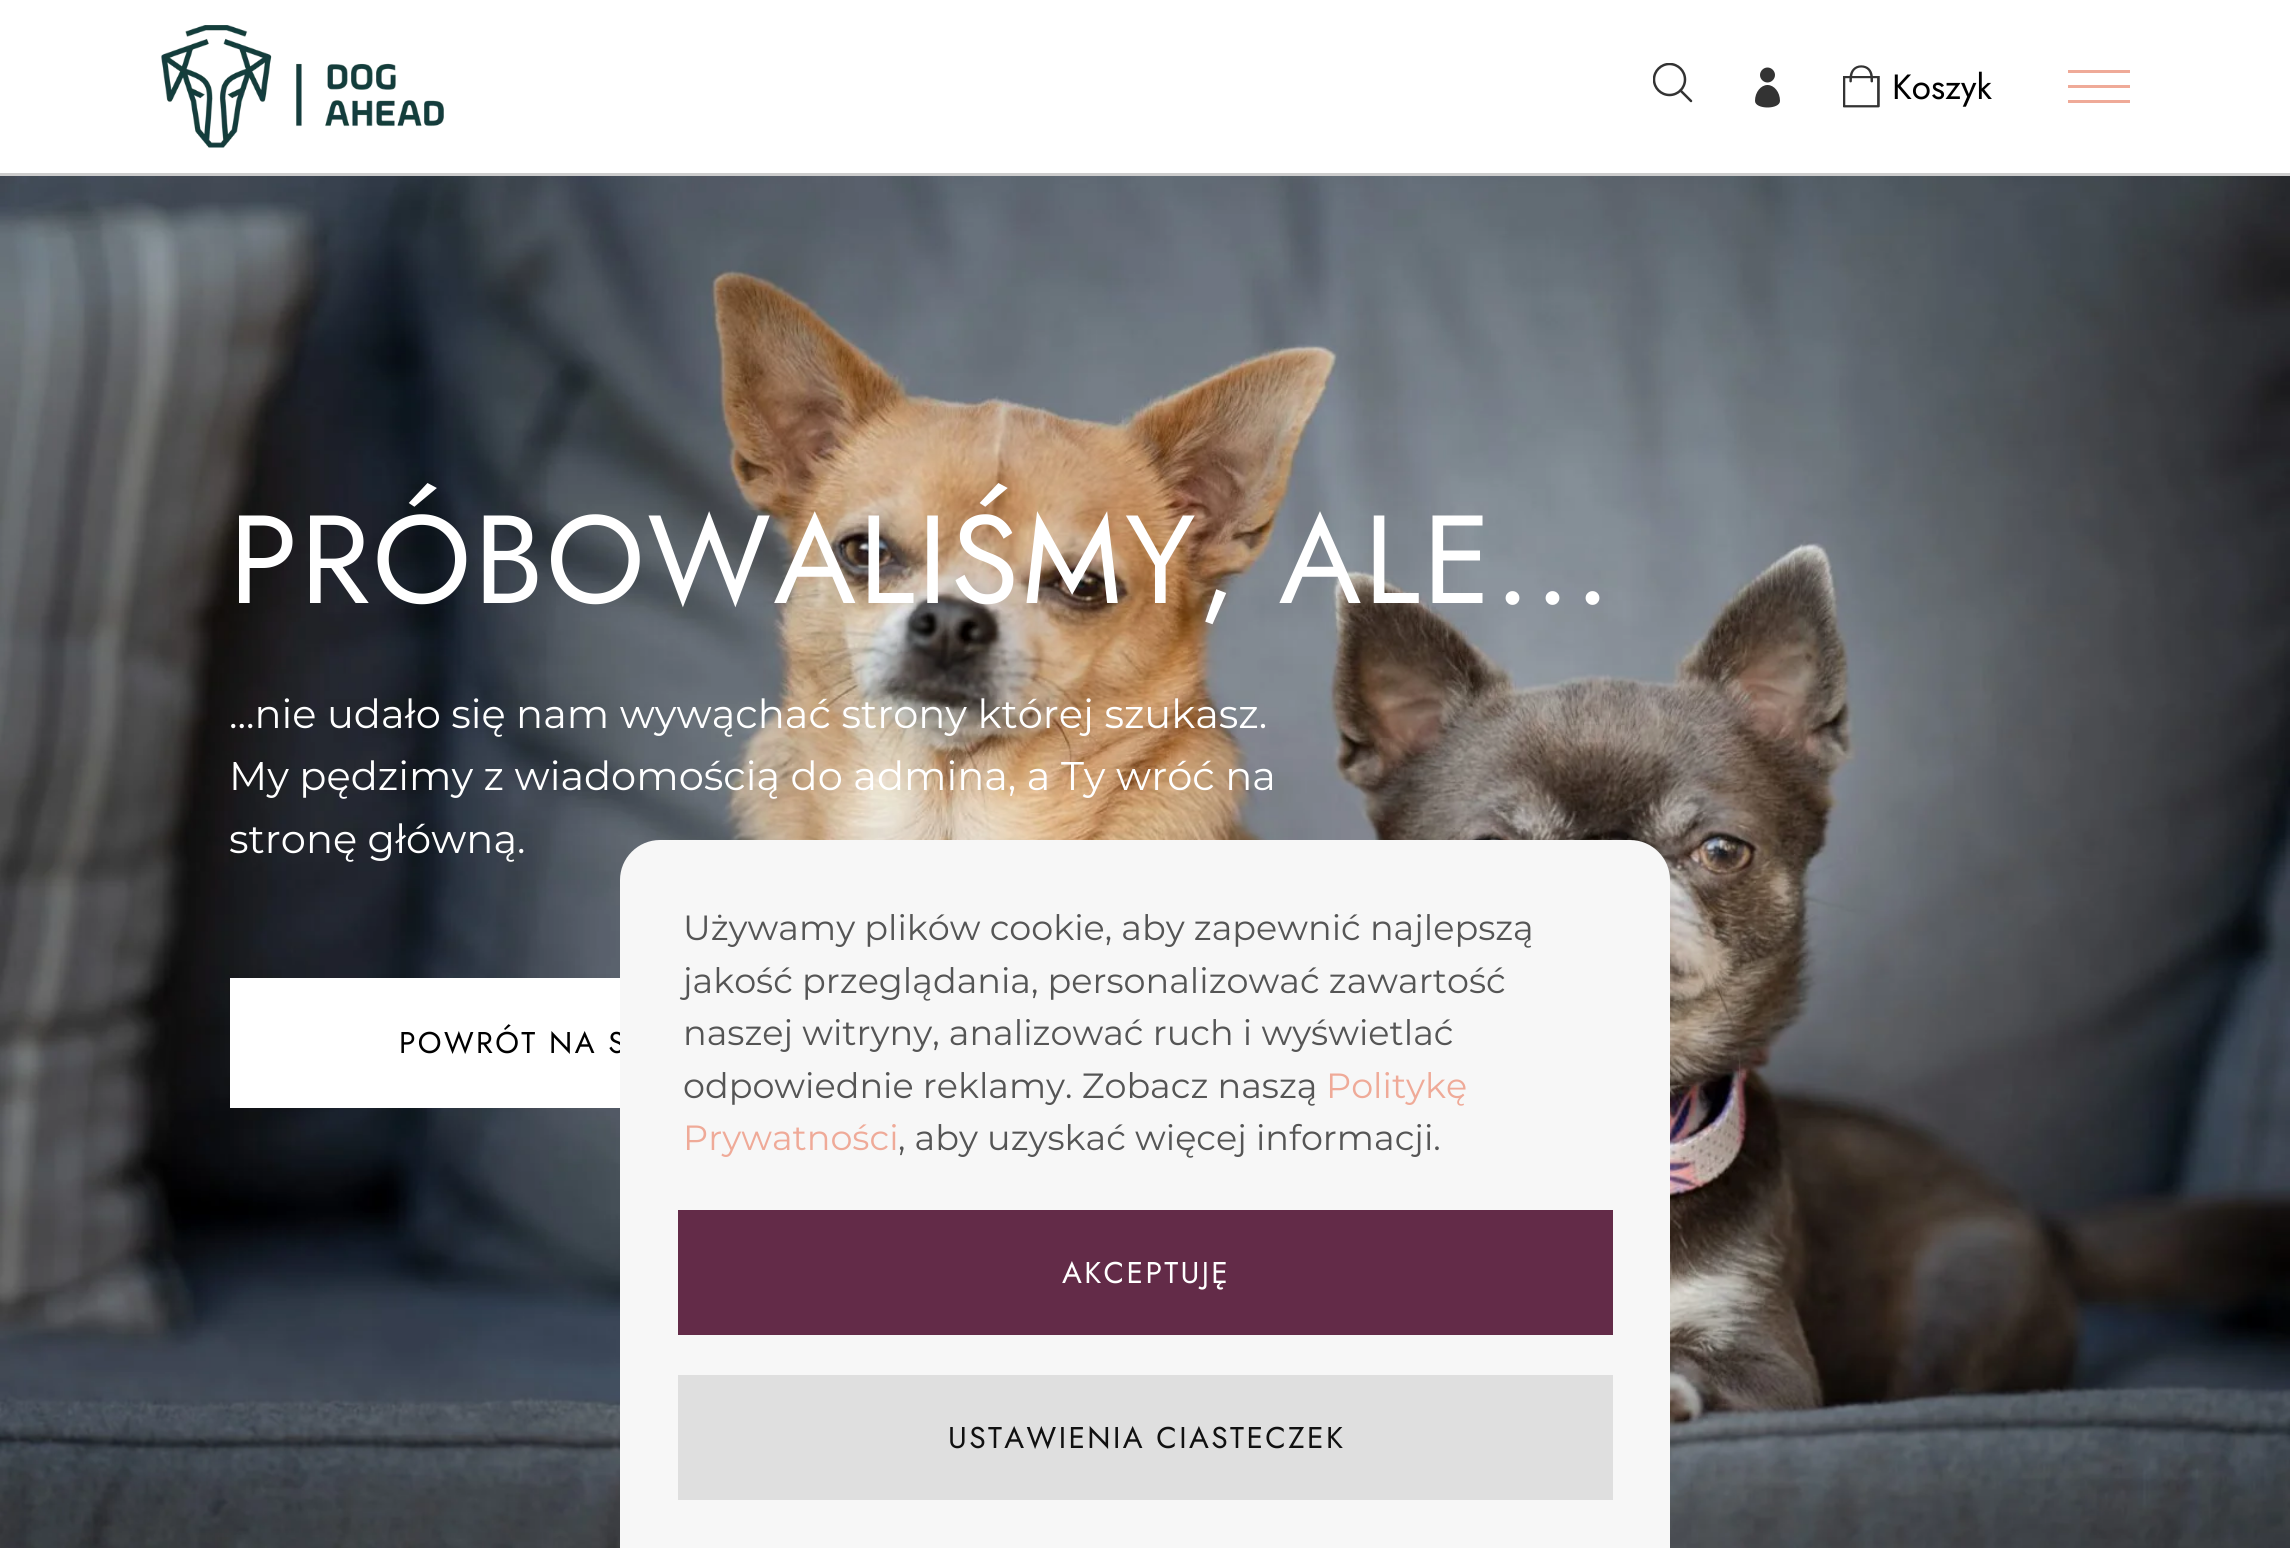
#include <cairo.h>
#include <math.h>
#include <stddef.h>


static void set_color(cairo_t *cr, unsigned color) {
    cairo_set_source_rgb(cr, (color >> 16) / 255.0, (color >> 8 & 255) / 255.0, (color & 255) / 255.0);
}

static void draw_text(cairo_t *cr, double x, double y, const char *s, const char *family, double size, int italic, int bold, unsigned color) {
    cairo_select_font_face(cr, family, italic ? CAIRO_FONT_SLANT_ITALIC : CAIRO_FONT_SLANT_NORMAL,
        bold ? CAIRO_FONT_WEIGHT_BOLD : CAIRO_FONT_WEIGHT_NORMAL);
    cairo_set_font_size(cr, size);
    set_color(cr, color);
    cairo_move_to(cr, x, y);
    cairo_show_text(cr, s);
}

static void draw_spaced(cairo_t *cr, double x, double y, const char *s, double letter, double word) {
    cairo_move_to(cr, x, y);
    while (*s) {
        char ch[5] = {0};
        int n = 0;
        do ch[n++] = *s++; while ((*s & 0xC0) == 0x80);
        cairo_show_text(cr, ch);
        cairo_rel_move_to(cr, letter + word * (*ch == ' '), 0);
    }
}

static void fill_rect(cairo_t *cr, double x, double y, double w, double h, unsigned color) {
    set_color(cr, color);
    cairo_rectangle(cr, x, y, w, h);
    cairo_fill(cr);
}

static void draw_image(cairo_t *cr, const char *path, double x, double y, double w, double h) {
    cairo_surface_t *image = cairo_image_surface_create_from_png(path);
    cairo_save(cr);
    cairo_set_source_surface(cr, image, x, y);
    cairo_rectangle(cr, x, y, w, h);
    cairo_fill(cr);
    cairo_restore(cr);
    cairo_surface_destroy(image);
}

int main(void) {
    cairo_surface_t *surface = cairo_image_surface_create(CAIRO_FORMAT_RGB24, 2290, 1548);
    cairo_t *cr = cairo_create(surface);
    cairo_font_options_t *options = cairo_font_options_create();
    cairo_font_options_set_hint_metrics(options, CAIRO_HINT_METRICS_OFF);
    cairo_font_options_set_hint_style(options, CAIRO_HINT_STYLE_NONE);
    cairo_set_font_options(cr, options);
    cairo_set_miter_limit(cr, 4);
    set_color(cr, 0xFFFFFF);
    cairo_paint(cr);
    fill_rect(cr, 0, 173, 2290, 3, 0xCCCCCC);
    draw_image(cr, "assets/img1.png", 161, 25, 283, 123);
    cairo_save(cr);
    cairo_rectangle(cr, 1653, 63, 40, 40);
    cairo_clip(cr);
    cairo_arc(cr, 1669.5, 79.5, 15.5, 0, 2 * M_PI);
    set_color(cr, 0x333333);
    cairo_set_line_width(cr, 2.5);
    cairo_stroke(cr);
    cairo_restore(cr);
    cairo_new_path(cr);
    cairo_move_to(cr, 1691, 101);
    cairo_line_to(cr, 1680.5, 90.5);
    set_color(cr, 0x333333);
    cairo_set_line_width(cr, 2.5);
    cairo_set_line_cap(cr, CAIRO_LINE_CAP_ROUND);
    cairo_set_line_join(cr, CAIRO_LINE_JOIN_ROUND);
    cairo_stroke(cr);
    draw_image(cr, "assets/img2.png", 1755, 67, 25, 41);
    draw_image(cr, "assets/img3.png", 1843, 65, 37, 43);
    draw_text(cr, 1892, 99, "Koszyk", "Jost", 35, 0, 0, 0x000000);
    fill_rect(cr, 2068, 70, 62, 3, 0xEFAA98);
    fill_rect(cr, 2068, 85, 62, 3, 0xEFAA98);
    fill_rect(cr, 2068, 100, 62, 3, 0xEFAA98);
    draw_image(cr, "assets/img4.png", 0, 176, 2290, 1372);
    cairo_set_font_size(cr, 125);
    set_color(cr, 0xFFFFFF);
    draw_spaced(cr, 229, 603, "PRÓBOWALIŚMY, ALE...", 2.5, 0);
    draw_text(cr, 229, 728, "...nie udało się nam wywąchać strony której szukasz.", "Montserrat", 40, 0, 0, 0xFFFFFF);
    draw_text(cr, 229, 790, "My pędzimy z wiadomością do admina, a Ty wróć na", "Montserrat", 40, 0, 0, 0xFFFFFF);
    draw_text(cr, 229, 853, "stronę główną.", "Montserrat", 40, 0, 0, 0xFFFFFF);
    fill_rect(cr, 230, 978, 390, 130, 0xFFFFFF);
    cairo_select_font_face(cr, "Jost", CAIRO_FONT_SLANT_NORMAL, CAIRO_FONT_WEIGHT_NORMAL);
    cairo_set_font_size(cr, 30);
    set_color(cr, 0x000000);
    draw_spaced(cr, 399, 1053, "POWRÓT NA S", 2.4, 0);
    set_color(cr, 0xF7F7F7);
    cairo_new_path(cr);
    cairo_move_to(cr, 660, 840);
    cairo_line_to(cr, 1630, 840);
    cairo_curve_to(cr, 1652, 840, 1670, 858, 1670, 880);
    cairo_line_to(cr, 1670, 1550);
    cairo_line_to(cr, 620, 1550);
    cairo_line_to(cr, 620, 880);
    cairo_curve_to(cr, 620, 858, 638, 840, 660, 840);
    cairo_close_path(cr);
    cairo_fill(cr);
    draw_text(cr, 683, 940, "Używamy plików cookie, aby zapewnić najlepszą", "Montserrat", 35, 0, 0, 0x555555);
    draw_text(cr, 683, 993, "jakość przeglądania, personalizować zawartość", "Montserrat", 35, 0, 0, 0x555555);
    draw_text(cr, 683, 1045, "naszej witryny, analizować ruch i wyświetlać", "Montserrat", 35, 0, 0, 0x555555);
    draw_text(cr, 683, 1098, "odpowiednie reklamy. Zobacz naszą", "Montserrat", 35, 0, 0, 0x555555);
    draw_text(cr, 1326, 1098, "Politykę", "Montserrat", 35, 0, 0, 0xEFAA98);
    draw_text(cr, 683, 1150, "Prywatności", "Montserrat", 35, 0, 0, 0xEFAA98);
    draw_text(cr, 898, 1150, ", aby uzyskać więcej informacji.", "Montserrat", 35, 0, 0, 0x555555);
    fill_rect(cr, 678, 1210, 935, 125, 0x632B48);
    cairo_select_font_face(cr, "Jost", CAIRO_FONT_SLANT_NORMAL, CAIRO_FONT_WEIGHT_NORMAL);
    cairo_set_font_size(cr, 30);
    set_color(cr, 0xFFFFFF);
    draw_spaced(cr, 1062, 1283, "AKCEPTUJĘ", 2.4, 0);
    fill_rect(cr, 678, 1375, 935, 125, 0xDFDFDF);
    set_color(cr, 0x111111);
    draw_spaced(cr, 948, 1448, "USTAWIENIA CIASTECZEK", 2.4, 0);
    cairo_surface_write_to_png(surface, "output.png");
    cairo_font_options_destroy(options);
    cairo_destroy(cr);
    cairo_surface_destroy(surface);
    return 0;
}
